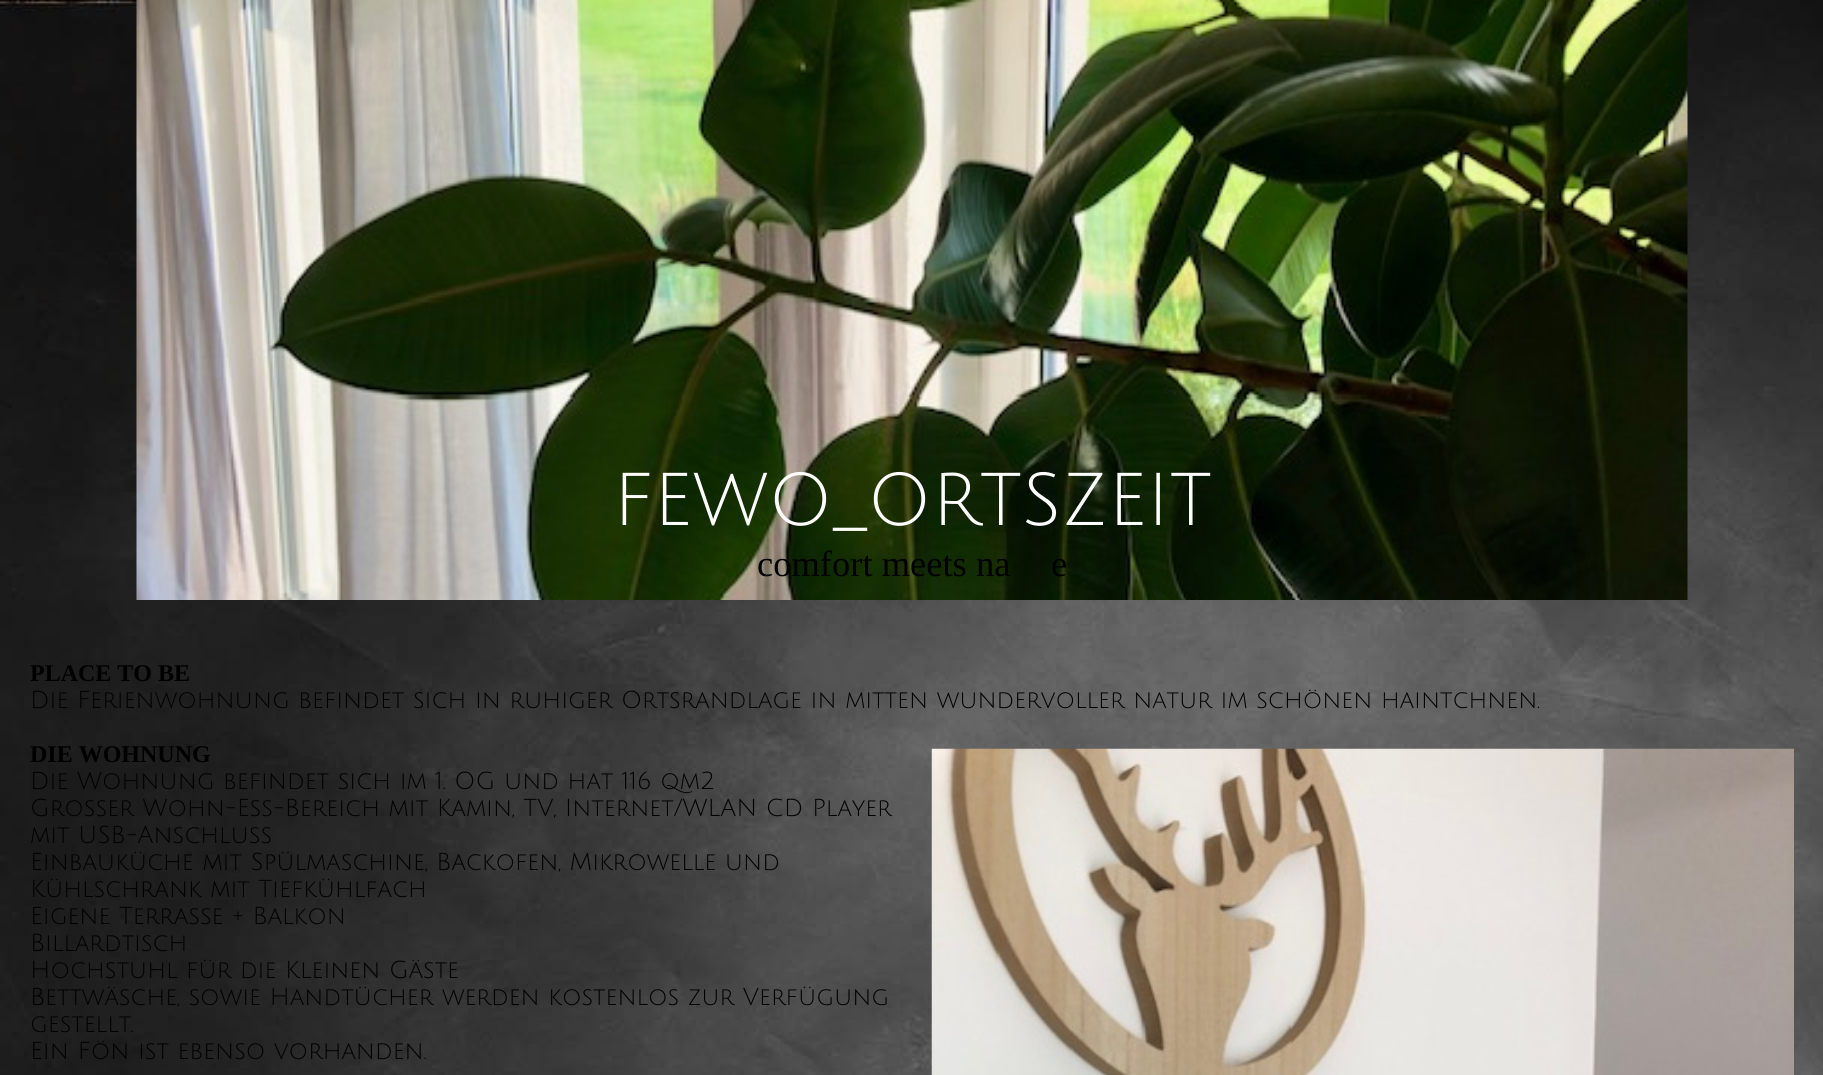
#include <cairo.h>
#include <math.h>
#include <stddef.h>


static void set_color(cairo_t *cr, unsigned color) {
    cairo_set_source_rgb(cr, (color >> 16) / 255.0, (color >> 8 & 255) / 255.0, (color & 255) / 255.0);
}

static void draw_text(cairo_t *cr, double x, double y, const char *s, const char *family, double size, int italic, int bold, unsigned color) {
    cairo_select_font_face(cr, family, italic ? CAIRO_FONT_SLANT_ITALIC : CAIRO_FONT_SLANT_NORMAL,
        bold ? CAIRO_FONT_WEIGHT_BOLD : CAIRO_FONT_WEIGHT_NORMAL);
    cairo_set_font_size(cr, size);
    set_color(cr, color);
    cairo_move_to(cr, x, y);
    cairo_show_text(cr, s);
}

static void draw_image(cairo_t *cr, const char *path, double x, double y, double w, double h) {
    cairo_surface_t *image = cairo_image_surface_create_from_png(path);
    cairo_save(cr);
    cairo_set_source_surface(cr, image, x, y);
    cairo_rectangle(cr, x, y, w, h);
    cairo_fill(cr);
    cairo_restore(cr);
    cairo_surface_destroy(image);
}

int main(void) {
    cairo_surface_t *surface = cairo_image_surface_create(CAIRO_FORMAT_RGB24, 1823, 1075);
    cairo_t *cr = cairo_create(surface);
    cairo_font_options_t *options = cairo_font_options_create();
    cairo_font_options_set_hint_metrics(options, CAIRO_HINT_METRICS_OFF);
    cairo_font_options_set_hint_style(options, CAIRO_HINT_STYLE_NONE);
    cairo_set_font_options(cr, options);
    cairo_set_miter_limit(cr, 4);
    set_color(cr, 0xFFFFFF);
    cairo_paint(cr);
    draw_image(cr, "assets/img1.png", 0, 0, 1823, 1075);
    draw_image(cr, "assets/img2.png", 136, 0, 1552, 600);
    draw_text(cr, 613, 525, "FEWO_ORTSZEIT", "Julius Sans One", 73, 0, 0, 0xFFFFFF);
    draw_text(cr, 757, 576, "comfort meets na", "Liberation Serif", 36.5, 0, 0, 0x000000);
    draw_text(cr, 1051, 576, "e", "Liberation Serif", 36.5, 0, 0, 0x000000);
    draw_text(cr, 30, 681, "PLACE TO BE", "Liberation Serif", 24, 0, 1, 0x000000);
    draw_text(cr, 30, 708, "Die Ferienwohnung befindet sich in ruhiger Ortsrandlage in mitten wundervoller natur im schönen haintchnen.", "Julius Sans One", 24, 0, 0, 0x000000);
    draw_text(cr, 30, 762, "DIE WOHNUNG", "Liberation Serif", 24, 0, 1, 0x000000);
    draw_text(cr, 30, 789, "Die Wohnung befindet sich im 1. OG und hat 116 qm2", "Julius Sans One", 24, 0, 0, 0x000000);
    draw_text(cr, 30, 816, "Großer Wohn-Ess-Bereich mit Kamin, TV, Internet/WLAN CD Player", "Julius Sans One", 24, 0, 0, 0x000000);
    draw_text(cr, 30, 843, "mit USB-Anschluss", "Julius Sans One", 24, 0, 0, 0x000000);
    draw_text(cr, 30, 870, "Einbauküche mit Spülmaschine, Backofen, Mikrowelle und", "Julius Sans One", 24, 0, 0, 0x000000);
    draw_text(cr, 30, 897, "Kühlschrank mit Tiefkühlfach", "Julius Sans One", 24, 0, 0, 0x000000);
    draw_text(cr, 30, 924, "Eigene Terrasse + Balkon", "Julius Sans One", 24, 0, 0, 0x000000);
    draw_text(cr, 30, 951, "Billardtisch", "Julius Sans One", 24, 0, 0, 0x000000);
    draw_text(cr, 30, 978, "Hochstuhl für die Kleinen Gäste", "Julius Sans One", 24, 0, 0, 0x000000);
    draw_text(cr, 30, 1005, "Bettwäsche, sowie Handtücher werden kostenlos zur Verfügung", "Julius Sans One", 24, 0, 0, 0x000000);
    draw_text(cr, 30, 1032, "gestellt.", "Julius Sans One", 24, 0, 0, 0x000000);
    draw_text(cr, 30, 1059, "Ein Fön ist ebenso vorhanden.", "Julius Sans One", 24, 0, 0, 0x000000);
    draw_image(cr, "assets/img3.png", 931, 748, 863, 327);
    cairo_surface_write_to_png(surface, "output.png");
    cairo_font_options_destroy(options);
    cairo_destroy(cr);
    cairo_surface_destroy(surface);
    return 0;
}
